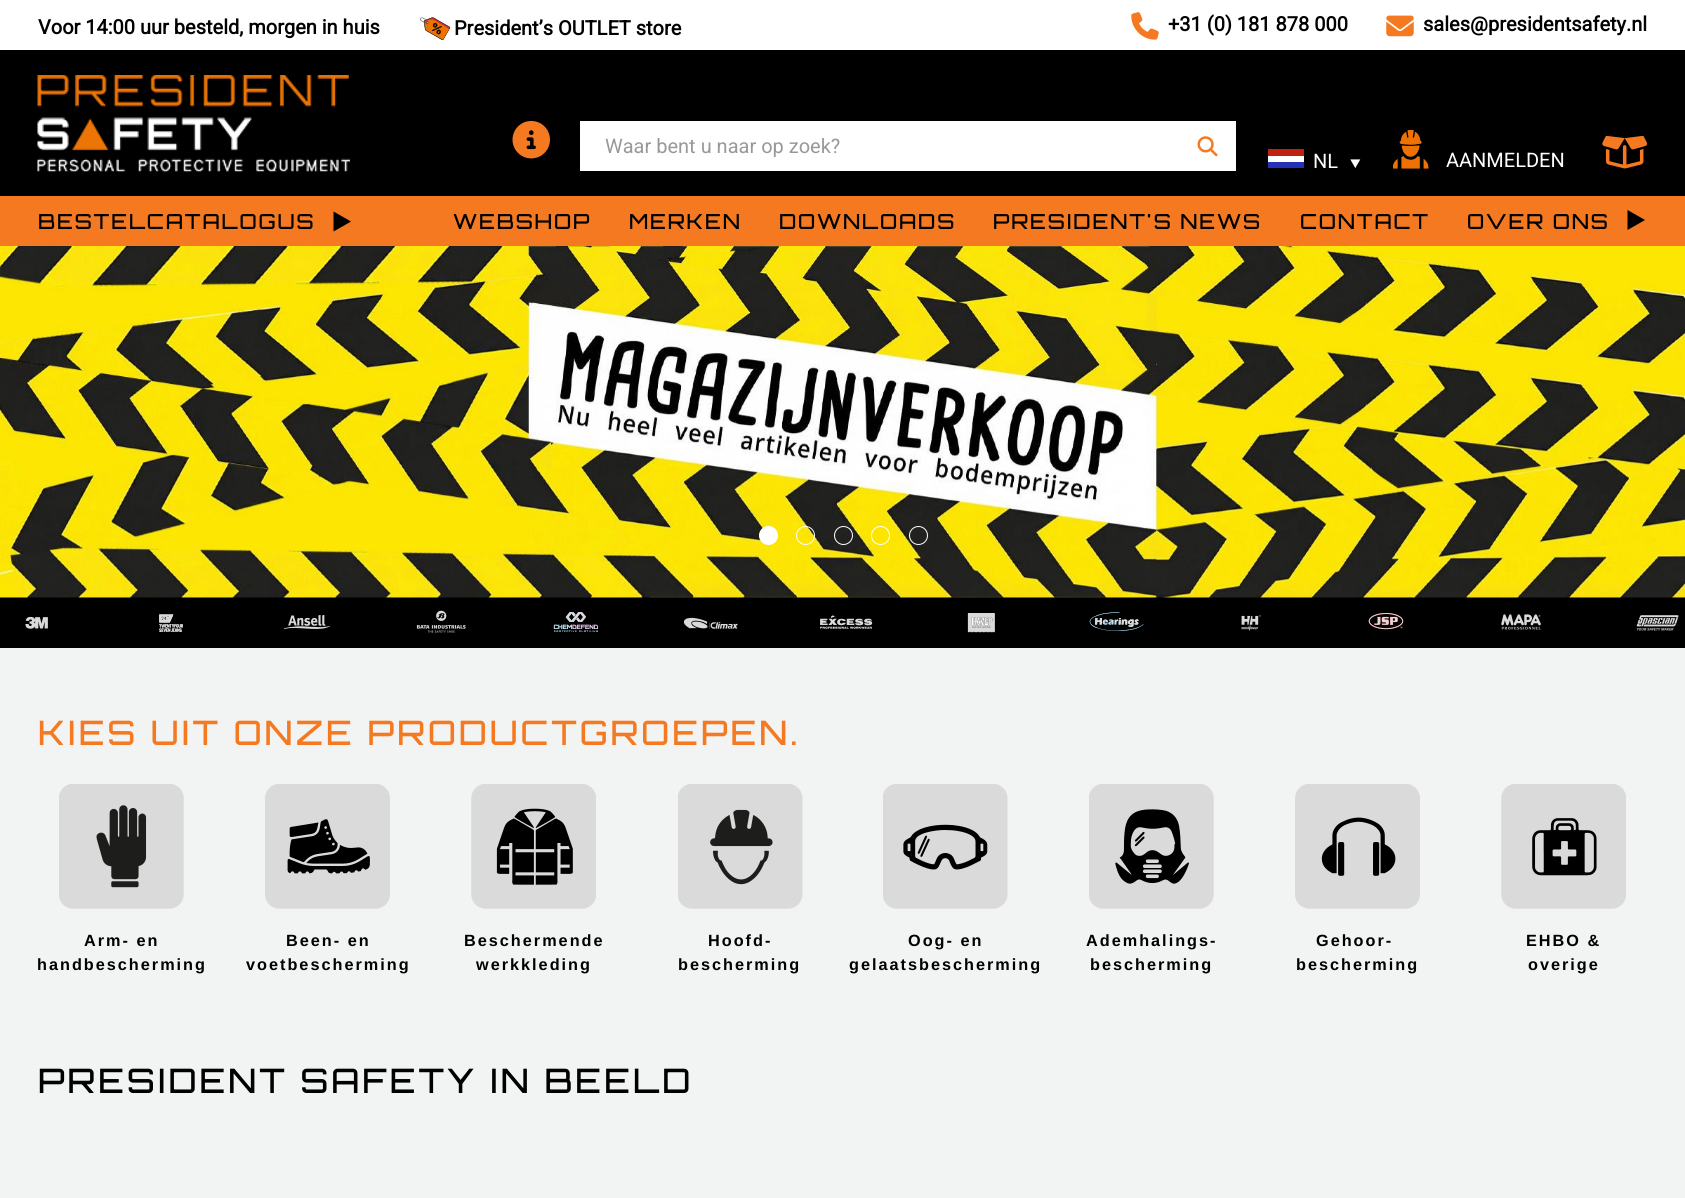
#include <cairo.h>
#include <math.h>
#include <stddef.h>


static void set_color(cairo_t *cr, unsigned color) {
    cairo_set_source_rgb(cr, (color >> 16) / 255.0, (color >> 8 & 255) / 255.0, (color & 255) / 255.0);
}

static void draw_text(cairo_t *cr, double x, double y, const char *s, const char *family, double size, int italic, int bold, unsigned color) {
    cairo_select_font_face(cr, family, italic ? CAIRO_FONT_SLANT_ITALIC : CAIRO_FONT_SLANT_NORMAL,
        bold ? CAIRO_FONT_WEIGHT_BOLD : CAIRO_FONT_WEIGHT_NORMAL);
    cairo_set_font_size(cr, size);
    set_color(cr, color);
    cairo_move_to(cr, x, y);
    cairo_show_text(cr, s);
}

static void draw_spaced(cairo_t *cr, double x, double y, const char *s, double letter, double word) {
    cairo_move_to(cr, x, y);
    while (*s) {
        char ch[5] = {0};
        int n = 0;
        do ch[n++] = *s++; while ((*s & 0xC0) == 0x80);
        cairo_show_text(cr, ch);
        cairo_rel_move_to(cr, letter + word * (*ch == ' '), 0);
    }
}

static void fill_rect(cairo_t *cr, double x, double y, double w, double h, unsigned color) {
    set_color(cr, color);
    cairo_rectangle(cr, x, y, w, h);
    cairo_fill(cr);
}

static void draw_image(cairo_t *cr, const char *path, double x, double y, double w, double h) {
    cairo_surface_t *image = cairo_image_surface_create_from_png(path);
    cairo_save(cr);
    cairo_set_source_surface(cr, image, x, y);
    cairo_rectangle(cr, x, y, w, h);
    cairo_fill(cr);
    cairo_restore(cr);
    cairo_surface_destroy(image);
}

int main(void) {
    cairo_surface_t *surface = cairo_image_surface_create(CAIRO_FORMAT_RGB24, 1685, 1198);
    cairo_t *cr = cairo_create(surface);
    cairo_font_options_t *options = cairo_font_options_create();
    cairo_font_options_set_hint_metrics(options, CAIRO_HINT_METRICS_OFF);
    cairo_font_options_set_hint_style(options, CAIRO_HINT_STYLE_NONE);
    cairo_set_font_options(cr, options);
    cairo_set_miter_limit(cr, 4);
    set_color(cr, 0xFFFFFF);
    cairo_paint(cr);
    draw_text(cr, 38, 34, "Voor 14:00 uur besteld, morgen in huis", "Roboto", 20, 0, 1, 0x000000);
    draw_image(cr, "assets/img1.png", 420, 17, 31, 24);
    draw_text(cr, 454, 35, "President’s OUTLET store", "Roboto", 20, 0, 1, 0x000000);
    draw_image(cr, "assets/img2.png", 1131, 12, 28, 28);
    draw_text(cr, 1168, 31, "+31 (0) 181 878 000", "Roboto", 20, 0, 1, 0x000000);
    draw_image(cr, "assets/img3.png", 1386, 15, 28, 22);
    draw_text(cr, 1423, 31, "sales@presidentsafety.nl", "Roboto", 20, 0, 1, 0x000000);
    fill_rect(cr, 0, 50, 1685, 146, 0x000000);
    draw_image(cr, "assets/img4.png", 37, 75, 313, 97);
    draw_image(cr, "assets/img5.png", 512, 120, 38, 39);
    fill_rect(cr, 580, 121, 656, 50, 0xFFFFFF);
    draw_text(cr, 605, 153, "Waar bent u naar op zoek?", "Roboto", 20, 0, 0, 0x999999);
    draw_image(cr, "assets/img6.png", 1197, 136, 21, 21);
    fill_rect(cr, 1268, 149, 36, 7, 0xBF2010);
    fill_rect(cr, 1268, 162, 36, 6, 0x2432BA);
    fill_rect(cr, 1268, 156, 36, 6, 0xFFFFFF);
    draw_text(cr, 1313, 168, "NL", "Roboto", 20, 0, 0, 0xFFFFFF);
    draw_image(cr, "assets/img7.png", 1350, 159, 11, 9);
    draw_image(cr, "assets/img8.png", 1393, 130, 36, 39);
    draw_text(cr, 1446, 167, "AANMELDEN", "Roboto", 20, 0, 0, 0xFFFFFF);
    draw_image(cr, "assets/img9.png", 1602, 135, 46, 34);
    fill_rect(cr, 0, 196, 1685, 50, 0xF47920);
    cairo_select_font_face(cr, "Orbitron", CAIRO_FONT_SLANT_NORMAL, CAIRO_FONT_WEIGHT_BOLD);
    set_color(cr, 0x000000);
    draw_spaced(cr, 38, 229, "BESTELCATALOGUS", 2.4, 0);
    cairo_new_path(cr);
    cairo_move_to(cr, 333.5, 211.5);
    cairo_line_to(cr, 351, 221.5);
    cairo_line_to(cr, 333.5, 211.5);
    cairo_line_to(cr, 351, 221.5);
    cairo_line_to(cr, 333.5, 231.5);
    cairo_close_path(cr);
    cairo_fill(cr);
    draw_spaced(cr, 453, 229, "WEBSHOP", 2.4, 0);
    draw_spaced(cr, 629, 229, "MERKEN", 2.4, 0);
    draw_spaced(cr, 779, 229, "DOWNLOADS", 2.4, 0);
    draw_spaced(cr, 993, 229, "PRESIDENT'S NEWS", 2.4, 0);
    draw_spaced(cr, 1300, 229, "CONTACT", 2.4, 0);
    draw_spaced(cr, 1467, 229, "OVER ONS", 2.4, 0);
    cairo_new_path(cr);
    cairo_move_to(cr, 1627.5, 210);
    cairo_line_to(cr, 1645, 220);
    cairo_line_to(cr, 1627.5, 210);
    cairo_line_to(cr, 1645, 220);
    cairo_line_to(cr, 1627.5, 230);
    cairo_close_path(cr);
    cairo_fill(cr);
    fill_rect(cr, 0, 648, 1685, 550, 0xF2F3F3);
    fill_rect(cr, 0, 597, 1685, 51, 0x000000);
    draw_image(cr, "assets/img10.png", 0, 246, 1685, 352);
    set_color(cr, 0xFFFFFF);
    cairo_arc(cr, 768.5, 535.5, 9, 0, 2 * M_PI);
    cairo_fill_preserve(cr);
    cairo_set_line_width(cr, 1);
    cairo_stroke(cr);
    cairo_arc(cr, 805.5, 535.5, 9, 0, 2 * M_PI);
    cairo_stroke(cr);
    cairo_arc(cr, 843.5, 535.5, 9, 0, 2 * M_PI);
    cairo_stroke(cr);
    cairo_arc(cr, 880.5, 535.5, 9, 0, 2 * M_PI);
    cairo_stroke(cr);
    cairo_arc(cr, 918.5, 535.5, 9, 0, 2 * M_PI);
    cairo_stroke(cr);
    draw_image(cr, "assets/img11.png", 25, 616, 23, 13);
    draw_image(cr, "assets/img12.png", 159, 614, 24, 18);
    draw_image(cr, "assets/img13.png", 284, 615, 46, 15);
    draw_image(cr, "assets/img14.png", 416, 610, 50, 23);
    draw_image(cr, "assets/img15.png", 553, 612, 45, 20);
    draw_image(cr, "assets/img16.png", 683, 617, 55, 12);
    draw_image(cr, "assets/img17.png", 820, 615, 53, 14);
    draw_image(cr, "assets/img18.png", 967, 613, 28, 20);
    draw_image(cr, "assets/img19.png", 1089, 612, 55, 19);
    draw_image(cr, "assets/img20.png", 1241, 615, 20, 16);
    draw_image(cr, "assets/img21.png", 1368, 613, 36, 17);
    draw_image(cr, "assets/img22.png", 1501, 614, 40, 16);
    draw_image(cr, "assets/img23.png", 1636, 615, 43, 16);
    cairo_set_font_size(cr, 32.5);
    set_color(cr, 0xF47920);
    draw_spaced(cr, 38, 745, "KIES UIT ONZE PRODUCTGROEPEN.", 3.9, 0);
    draw_image(cr, "assets/img24.png", 59, 784, 125, 125);
    cairo_select_font_face(cr, "Liberation Sans", CAIRO_FONT_SLANT_NORMAL, CAIRO_FONT_WEIGHT_BOLD);
    cairo_set_font_size(cr, 16.25);
    set_color(cr, 0x000000);
    draw_spaced(cr, 84, 946, "Arm- en", 2, 0);
    draw_spaced(cr, 37, 970, "handbescherming", 2, 0);
    draw_image(cr, "assets/img25.png", 265, 784, 125, 125);
    draw_spaced(cr, 286, 946, "Been- en", 2, 0);
    draw_spaced(cr, 246, 970, "voetbescherming", 2, 0);
    draw_image(cr, "assets/img26.png", 471, 784, 125, 125);
    draw_spaced(cr, 464, 946, "Beschermende", 2, 0);
    draw_spaced(cr, 476, 970, "werkkleding", 2, 0);
    draw_image(cr, "assets/img27.png", 678, 784, 125, 125);
    draw_spaced(cr, 708, 946, "Hoofd-", 2, 0);
    draw_spaced(cr, 678, 970, "bescherming", 2, 0);
    draw_image(cr, "assets/img28.png", 883, 784, 125, 125);
    draw_spaced(cr, 908, 946, "Oog- en", 2, 0);
    draw_spaced(cr, 849, 970, "gelaatsbescherming", 2, 0);
    draw_image(cr, "assets/img29.png", 1089, 784, 125, 125);
    draw_spaced(cr, 1086, 946, "Ademhalings-", 2, 0);
    draw_spaced(cr, 1090, 970, "bescherming", 2, 0);
    draw_image(cr, "assets/img30.png", 1295, 784, 125, 125);
    draw_spaced(cr, 1316, 946, "Gehoor-", 2, 0);
    draw_spaced(cr, 1296, 970, "bescherming", 2, 0);
    draw_image(cr, "assets/img31.png", 1501, 784, 125, 125);
    draw_spaced(cr, 1526, 946, "EHBO &", 2, 0);
    draw_spaced(cr, 1528, 970, "overige", 2, 0);
    cairo_select_font_face(cr, "Orbitron", CAIRO_FONT_SLANT_NORMAL, CAIRO_FONT_WEIGHT_BOLD);
    cairo_set_font_size(cr, 32.5);
    draw_spaced(cr, 38, 1093, "PRESIDENT SAFETY IN BEELD", 3.9, 0);
    cairo_surface_write_to_png(surface, "output.png");
    cairo_font_options_destroy(options);
    cairo_destroy(cr);
    cairo_surface_destroy(surface);
    return 0;
}
